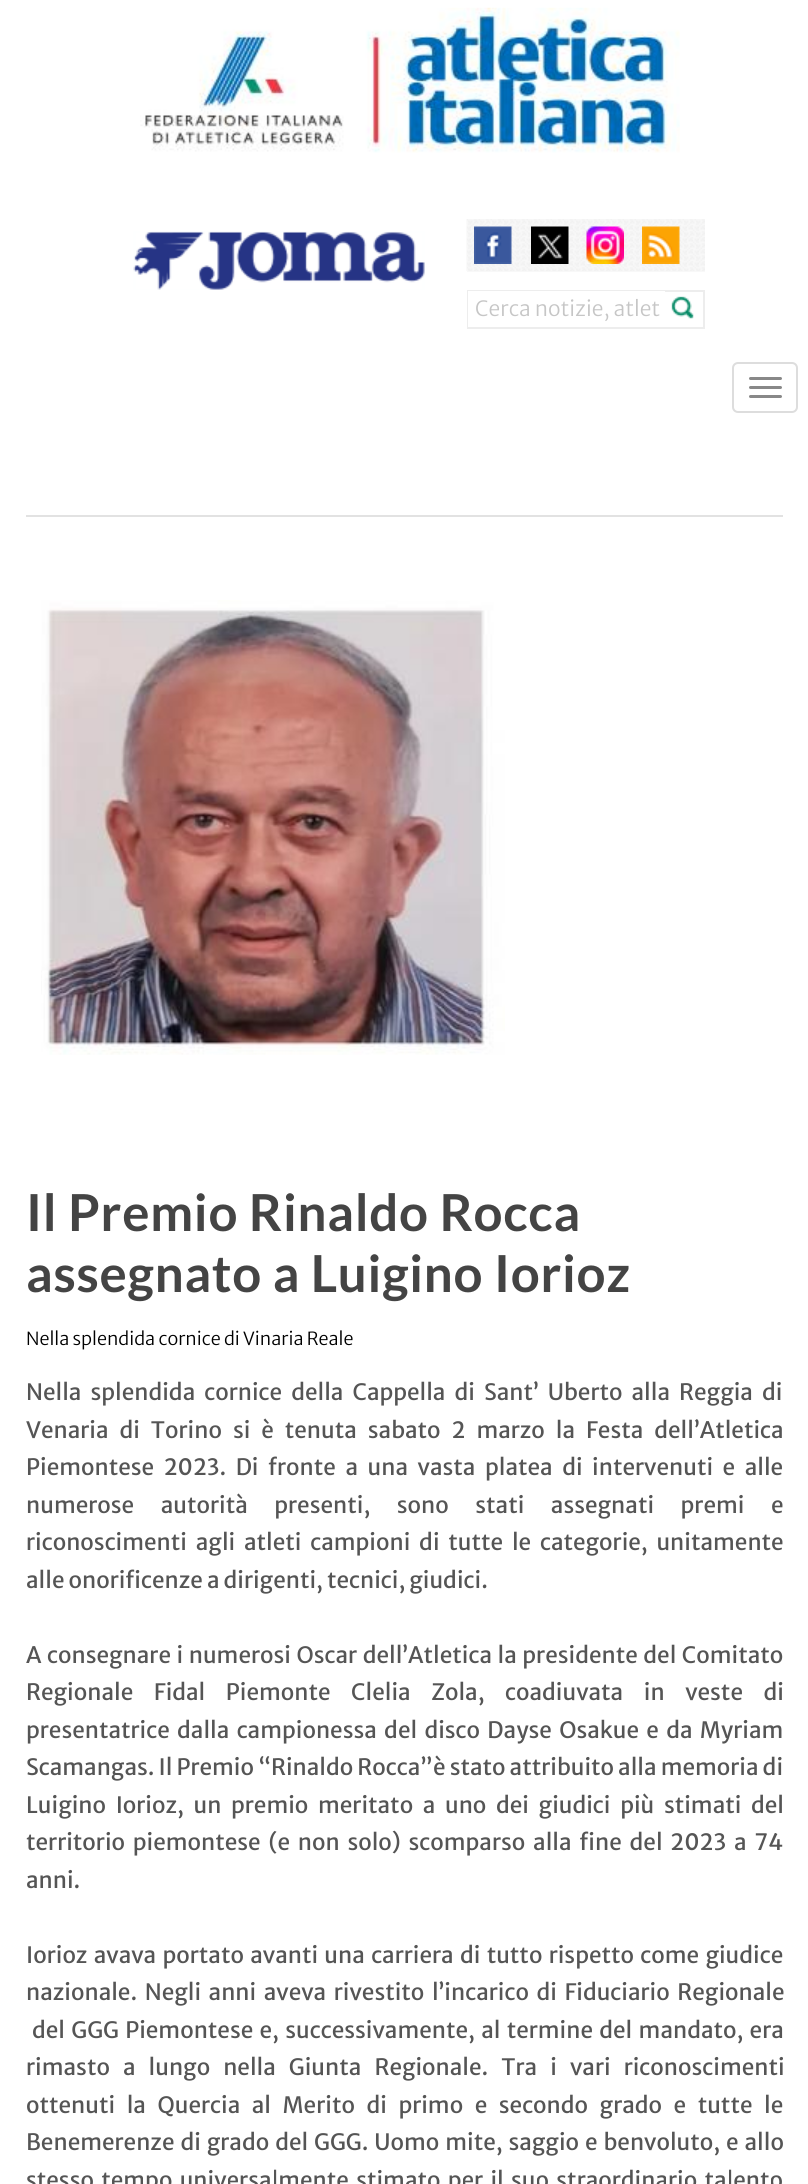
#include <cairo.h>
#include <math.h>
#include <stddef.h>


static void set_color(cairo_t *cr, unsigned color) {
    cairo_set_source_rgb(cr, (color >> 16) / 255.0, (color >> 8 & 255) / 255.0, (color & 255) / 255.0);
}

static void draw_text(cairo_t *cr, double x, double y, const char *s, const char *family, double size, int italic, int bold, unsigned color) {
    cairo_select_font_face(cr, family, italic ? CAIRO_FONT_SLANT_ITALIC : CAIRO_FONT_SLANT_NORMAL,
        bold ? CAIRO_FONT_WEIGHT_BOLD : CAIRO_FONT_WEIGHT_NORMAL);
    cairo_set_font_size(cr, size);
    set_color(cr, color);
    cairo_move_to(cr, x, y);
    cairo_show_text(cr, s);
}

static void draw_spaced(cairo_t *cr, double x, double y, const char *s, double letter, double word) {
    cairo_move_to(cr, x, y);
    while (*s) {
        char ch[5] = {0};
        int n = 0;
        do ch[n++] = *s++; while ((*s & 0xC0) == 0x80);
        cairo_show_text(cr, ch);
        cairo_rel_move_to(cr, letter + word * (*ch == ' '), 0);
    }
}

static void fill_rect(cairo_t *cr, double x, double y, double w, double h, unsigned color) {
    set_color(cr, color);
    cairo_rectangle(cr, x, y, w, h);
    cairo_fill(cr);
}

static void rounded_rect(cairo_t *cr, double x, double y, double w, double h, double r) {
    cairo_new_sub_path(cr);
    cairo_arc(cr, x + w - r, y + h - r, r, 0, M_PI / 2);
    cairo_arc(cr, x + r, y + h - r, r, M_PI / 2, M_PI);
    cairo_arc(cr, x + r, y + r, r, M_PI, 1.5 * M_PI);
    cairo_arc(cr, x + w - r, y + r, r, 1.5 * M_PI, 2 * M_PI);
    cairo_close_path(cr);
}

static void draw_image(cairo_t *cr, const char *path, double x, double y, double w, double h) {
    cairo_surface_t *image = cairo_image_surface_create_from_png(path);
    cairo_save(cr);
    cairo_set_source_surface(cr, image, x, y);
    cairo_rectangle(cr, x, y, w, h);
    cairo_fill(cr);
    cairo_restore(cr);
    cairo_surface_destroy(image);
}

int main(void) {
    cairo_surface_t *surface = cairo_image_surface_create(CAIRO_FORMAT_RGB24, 808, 2184);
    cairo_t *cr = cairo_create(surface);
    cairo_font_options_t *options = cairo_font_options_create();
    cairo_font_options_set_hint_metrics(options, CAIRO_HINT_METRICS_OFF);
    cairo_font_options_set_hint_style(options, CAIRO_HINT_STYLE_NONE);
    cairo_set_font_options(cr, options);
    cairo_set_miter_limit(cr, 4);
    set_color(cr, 0xFFFFFF);
    cairo_paint(cr);
    draw_image(cr, "assets/img1.png", 140, 7, 540, 146);
    draw_image(cr, "assets/img2.png", 133, 231, 292, 59);
    fill_rect(cr, 467, 271, 238, 1, 0xF8F8F8);
    draw_image(cr, "assets/img3.png", 466, 219, 239, 52);
    draw_image(cr, "assets/img4.png", 474, 226, 38, 38);
    draw_image(cr, "assets/img5.png", 531, 226, 38, 38);
    draw_image(cr, "assets/img6.png", 586, 226, 38, 38);
    draw_image(cr, "assets/img7.png", 642, 226, 38, 38);
    cairo_rectangle(cr, 468, 291, 236, 37);
    set_color(cr, 0xEDEDED);
    cairo_stroke(cr);
    fill_rect(cr, 468, 291, 197, 36, 0xFFFFFF);
    draw_text(cr, 475, 316, "Cerca notizie, atlet", "Merriweather Sans Light", 21, 0, 0, 0xC6C6C6);
    draw_image(cr, "assets/img8.png", 671, 296, 23, 23);
    rounded_rect(cr, 733, 363, 64, 49, 5);
    set_color(cr, 0xDDDDDD);
    cairo_stroke(cr);
    set_color(cr, 0x888888);
    rounded_rect(cr, 749, 377, 33, 3, 1.5);
    cairo_fill(cr);
    rounded_rect(cr, 749, 386, 33, 3, 1.5);
    cairo_fill(cr);
    rounded_rect(cr, 749, 395, 33, 3, 1.5);
    cairo_fill(cr);
    fill_rect(cr, 26, 515, 757, 2, 0xE2E2E2);
    draw_image(cr, "assets/img9.png", 41, 600, 464, 455);
    cairo_select_font_face(cr, "Lato", CAIRO_FONT_SLANT_NORMAL, CAIRO_FONT_WEIGHT_BOLD);
    cairo_set_font_size(cr, 51);
    set_color(cr, 0x444444);
    draw_spaced(cr, 26, 1231, "Il Premio Rinaldo Rocca", 0.75, 0);
    draw_spaced(cr, 26, 1292, "assegnato a Luigino Iorioz", 0.75, 0);
    draw_text(cr, 26, 1345, "Nella splendida cornice di Vinaria Reale", "Merriweather Sans Light", 18, 0, 0, 0x000000);
    cairo_select_font_face(cr, "Merriweather Sans", CAIRO_FONT_SLANT_NORMAL, CAIRO_FONT_WEIGHT_NORMAL);
    cairo_set_font_size(cr, 22.5);
    set_color(cr, 0x555555);
    draw_spaced(cr, 26, 1400, "Nella splendida cornice della Cappella di Sant’ Uberto alla Reggia di", 0, 5);
    draw_spaced(cr, 26, 1438, "Venaria di Torino si è tenuta sabato 2 marzo la Festa dell’Atletica", 0, 6.9);
    draw_spaced(cr, 26, 1475, "Piemontese 2023. Di fronte a una vasta platea di intervenuti e alle", 0, 5.5);
    draw_spaced(cr, 26, 1513, "numerose autorità presenti, sono stati assegnati premi e", 0, 22.5);
    draw_spaced(cr, 26, 1550, "riconoscimenti agli atleti campioni di tutte le categorie, unitamente", 0, 4.75);
    draw_text(cr, 26, 1588, "alle onorificenze a dirigenti, tecnici, giudici.", "Merriweather Sans", 22.5, 0, 0, 0x555555);
    draw_spaced(cr, 26, 1663, "A consegnare i numerosi Oscar dell’Atletica la presidente del Comitato", 0, 1.5);
    draw_spaced(cr, 26, 1700, "Regionale Fidal Piemonte Clelia Zola, coadiuvata in veste di", 0, 16.5);
    draw_spaced(cr, 26, 1738, "presentatrice dalla campionessa del disco Dayse Osakue e da Myriam", 0, 3.25);
    draw_text(cr, 26, 1775, "Scamangas. Il Premio “Rinaldo Rocca”è stato attribuito alla memoria di", "Merriweather Sans", 22.5, 0, 0, 0x555555);
    draw_spaced(cr, 26, 1813, "Luigino Iorioz, un premio meritato a uno dei giudici più stimati del", 0, 5.6);
    draw_spaced(cr, 26, 1850, "territorio piemontese (e non solo) scomparso alla fine del 2023 a 74", 0, 3.75);
    draw_text(cr, 26, 1888, "anni.", "Merriweather Sans", 22.5, 0, 0, 0x555555);
    draw_spaced(cr, 26, 1963, "Iorioz avava portato avanti una carriera di tutto rispetto come giudice", 0, 2.25);
    draw_spaced(cr, 26, 2000, "nazionale. Negli anni aveva rivestito l’incarico di Fiduciario Regionale", 0, 3.5);
    draw_spaced(cr, 32, 2038, "del GGG Piemontese e, successivamente, al termine del mandato, era", 0, 2.25);
    draw_spaced(cr, 26, 2075, "rimasto a lungo nella Giunta Regionale. Tra i vari riconoscimenti", 0, 9);
    draw_spaced(cr, 26, 2113, "ottenuti la Quercia al Merito di primo e secondo grado e tutte le", 0, 7.5);
    draw_spaced(cr, 26, 2150, "Benemerenze di grado del GGG. Uomo mite, saggio e benvoluto, e allo", 0, 1.9);
    draw_spaced(cr, 26, 2188, "stesso tempo universalmente stimato per il suo straordinario talento", 0, 3.25);
    cairo_surface_write_to_png(surface, "output.png");
    cairo_font_options_destroy(options);
    cairo_destroy(cr);
    cairo_surface_destroy(surface);
    return 0;
}
